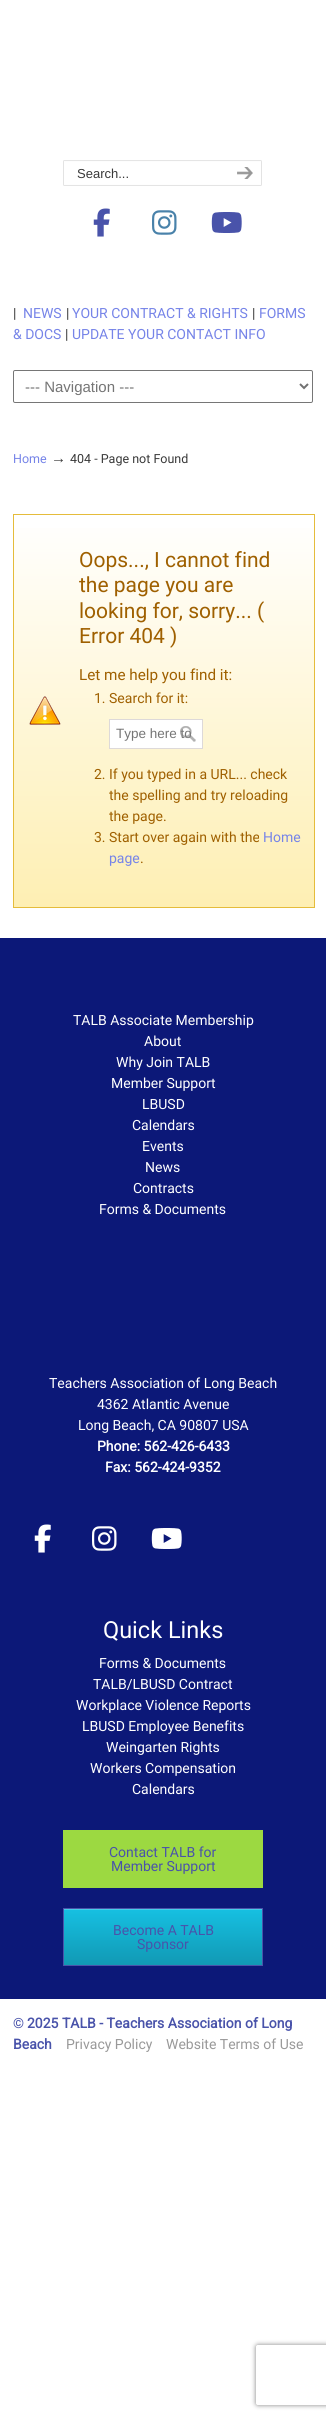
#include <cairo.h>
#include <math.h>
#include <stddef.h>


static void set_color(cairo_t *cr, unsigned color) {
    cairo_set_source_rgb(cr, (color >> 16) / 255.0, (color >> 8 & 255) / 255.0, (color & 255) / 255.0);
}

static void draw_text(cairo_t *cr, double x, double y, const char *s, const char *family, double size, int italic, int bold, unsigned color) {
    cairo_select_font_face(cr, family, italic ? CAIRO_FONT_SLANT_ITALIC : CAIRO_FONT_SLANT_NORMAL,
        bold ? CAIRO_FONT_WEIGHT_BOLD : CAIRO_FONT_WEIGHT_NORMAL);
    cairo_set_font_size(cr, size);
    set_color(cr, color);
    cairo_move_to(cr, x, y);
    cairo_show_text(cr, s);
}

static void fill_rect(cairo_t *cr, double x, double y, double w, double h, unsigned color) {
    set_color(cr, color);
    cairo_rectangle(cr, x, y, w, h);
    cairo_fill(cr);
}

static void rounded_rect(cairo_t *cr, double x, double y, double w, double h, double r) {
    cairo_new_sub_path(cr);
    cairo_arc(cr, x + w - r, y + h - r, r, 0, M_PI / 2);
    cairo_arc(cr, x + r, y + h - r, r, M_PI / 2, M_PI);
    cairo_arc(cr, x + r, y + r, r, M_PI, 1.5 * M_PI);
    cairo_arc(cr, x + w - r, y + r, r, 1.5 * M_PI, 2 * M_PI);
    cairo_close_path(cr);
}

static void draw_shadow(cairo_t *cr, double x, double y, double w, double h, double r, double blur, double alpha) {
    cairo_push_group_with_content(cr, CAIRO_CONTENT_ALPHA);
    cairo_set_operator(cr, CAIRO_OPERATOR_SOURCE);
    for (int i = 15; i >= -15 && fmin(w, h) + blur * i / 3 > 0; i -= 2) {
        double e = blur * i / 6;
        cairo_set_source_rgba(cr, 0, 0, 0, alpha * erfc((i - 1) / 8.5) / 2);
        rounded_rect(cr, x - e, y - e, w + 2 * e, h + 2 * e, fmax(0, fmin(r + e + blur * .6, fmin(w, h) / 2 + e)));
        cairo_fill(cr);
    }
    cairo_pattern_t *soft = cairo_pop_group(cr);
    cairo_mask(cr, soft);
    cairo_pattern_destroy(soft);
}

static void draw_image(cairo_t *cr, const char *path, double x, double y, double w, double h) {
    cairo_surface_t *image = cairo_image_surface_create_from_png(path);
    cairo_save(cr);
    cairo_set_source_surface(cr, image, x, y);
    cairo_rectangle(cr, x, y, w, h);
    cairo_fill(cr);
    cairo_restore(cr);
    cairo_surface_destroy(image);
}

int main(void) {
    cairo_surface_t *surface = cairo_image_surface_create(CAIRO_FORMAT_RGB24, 326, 2419);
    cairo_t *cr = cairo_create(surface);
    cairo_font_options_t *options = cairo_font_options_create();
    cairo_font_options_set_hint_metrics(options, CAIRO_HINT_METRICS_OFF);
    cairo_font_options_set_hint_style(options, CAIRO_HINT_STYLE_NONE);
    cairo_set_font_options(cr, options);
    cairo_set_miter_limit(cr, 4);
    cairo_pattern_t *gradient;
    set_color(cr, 0xFFFFFF);
    cairo_paint(cr);
    draw_image(cr, "assets/img1.png", 63, 160, 159, 26);
    draw_text(cr, 77, 178, "Search...", "Liberation Sans", 13, 0, 0, 0x393939);
    draw_image(cr, "assets/img2.png", 222, 160, 40, 26);
    draw_image(cr, "assets/img3.png", 93, 208, 17, 29);
    draw_image(cr, "assets/img4.png", 152, 210, 25, 25);
    draw_image(cr, "assets/img5.png", 211, 212, 31, 21);
    draw_text(cr, 13, 318, "|", "Roboto", 14, 0, 0, 0x393939);
    draw_text(cr, 23, 318, "NEWS", "Roboto", 14, 0, 0, 0x7684E8);
    draw_text(cr, 66, 318, "|", "Roboto", 14, 0, 0, 0x393939);
    draw_text(cr, 72, 318, "YOUR CONTRACT & RIGHTS", "Roboto", 14, 0, 0, 0x7684E8);
    draw_text(cr, 252, 318, "|", "Roboto", 14, 0, 0, 0x393939);
    draw_text(cr, 259, 318, "FORMS", "Roboto", 14, 0, 0, 0x7684E8);
    draw_text(cr, 13, 339, "& DOCS", "Roboto", 14, 0, 0, 0x7684E8);
    draw_text(cr, 65, 339, "|", "Roboto", 14, 0, 0, 0x393939);
    draw_text(cr, 72, 339, "UPDATE YOUR CONTACT INFO", "Roboto", 14, 0, 0, 0x7684E8);
    rounded_rect(cr, 13.5, 370.5, 299, 32, 1.5);
    set_color(cr, 0x767676);
    cairo_set_line_width(cr, 1);
    cairo_stroke(cr);
    cairo_new_path(cr);
    cairo_move_to(cr, 300, 384);
    cairo_line_to(cr, 304, 388);
    cairo_line_to(cr, 308, 384);
    set_color(cr, 0x717171);
    cairo_set_line_width(cr, 2);
    cairo_stroke(cr);
    draw_text(cr, 25, 392, "--- Navigation ---", "Liberation Sans", 15, 0, 0, 0x757575);
    draw_text(cr, 13, 463, "Home", "Roboto", 12.5, 0, 0, 0x7684E8);
    draw_text(cr, 51, 463, "→", "Liberation Serif", 15, 0, 0, 0x393939);
    draw_text(cr, 70, 463, "404 - Page not Found", "Roboto", 12.5, 0, 0, 0x393939);
    gradient = cairo_pattern_create_linear(164, 515, 164, 907);
    cairo_pattern_add_color_stop_rgba(gradient, 0, 1, 1, 1, 1);
    cairo_pattern_add_color_stop_rgba(gradient, 1, 0.996, 0.937, 0.702, 1);
    cairo_set_source(cr, gradient);
    cairo_pattern_destroy(gradient);
    cairo_rectangle(cr, 14, 528, 300, 379);
    cairo_fill(cr);
    cairo_rectangle(cr, 13.5, 514.5, 301, 393);
    set_color(cr, 0xE5BC3B);
    cairo_set_line_width(cr, 1);
    cairo_stroke(cr);
    draw_text(cr, 79, 567, "Oops..., I cannot find", "Roboto", 21, 0, 0, 0x9F6000);
    draw_text(cr, 79, 592, "the page you are", "Roboto", 21, 0, 0, 0x9F6000);
    draw_text(cr, 79, 618, "looking for, sorry... (", "Roboto", 21, 0, 0, 0x9F6000);
    draw_text(cr, 79, 643, "Error 404 )", "Roboto", 21, 0, 0, 0x9F6000);
    draw_image(cr, "assets/img6.png", 29, 696, 32, 29);
    draw_text(cr, 79, 680, "Let me help you find it:", "Roboto", 15.25, 0, 0, 0x9F6000);
    draw_text(cr, 94, 703, "1. Search for it:", "Roboto", 14, 0, 0, 0x9F6000);
    set_color(cr, 0xFFFFFF);
    cairo_rectangle(cr, 109.5, 719.5, 93, 29);
    cairo_fill_preserve(cr);
    set_color(cr, 0xDDD9D9);
    cairo_stroke(cr);
    draw_text(cr, 116, 738, "Type here to", "Liberation Sans", 13.5, 0, 0, 0x757575);
    draw_image(cr, "assets/img7.png", 180, 726, 16, 16);
    draw_text(cr, 94, 779, "2. If you typed in a URL... check", "Roboto", 14, 0, 0, 0x9F6000);
    draw_text(cr, 109, 800, "the spelling and try reloading", "Roboto", 14, 0, 0, 0x9F6000);
    draw_text(cr, 109, 821, "the page.", "Roboto", 14, 0, 0, 0x9F6000);
    draw_text(cr, 94, 842, "3. Start over again with the", "Roboto", 14, 0, 0, 0x9F6000);
    draw_text(cr, 263, 842, "Home", "Roboto", 14, 0, 0, 0x7684E8);
    draw_text(cr, 109, 863, "page", "Roboto", 14, 0, 0, 0x7684E8);
    draw_text(cr, 140, 863, ".", "Roboto", 14, 0, 0, 0x9F6000);
    fill_rect(cr, 0, 938, 326, 1061, 0x0C1878);
    draw_text(cr, 73, 1025, "TALB Associate Membership", "Roboto", 14, 0, 0, 0xFFFFFF);
    draw_text(cr, 144, 1046, "About", "Roboto", 14, 0, 0, 0xFFFFFF);
    draw_text(cr, 116, 1067, "Why Join TALB", "Roboto", 14, 0, 0, 0xFFFFFF);
    draw_text(cr, 111, 1088, "Member Support", "Roboto", 14, 0, 0, 0xFFFFFF);
    draw_text(cr, 142, 1109, "LBUSD", "Roboto", 14, 0, 0, 0xFFFFFF);
    draw_text(cr, 132, 1130, "Calendars", "Roboto", 14, 0, 0, 0xFFFFFF);
    draw_text(cr, 142, 1151, "Events", "Roboto", 14, 0, 0, 0xFFFFFF);
    draw_text(cr, 145, 1172, "News", "Roboto", 14, 0, 0, 0xFFFFFF);
    draw_text(cr, 133, 1193, "Contracts", "Roboto", 14, 0, 0, 0xFFFFFF);
    draw_text(cr, 99, 1214, "Forms & Documents", "Roboto", 14, 0, 0, 0xFFFFFF);
    draw_text(cr, 49, 1388, "Teachers Association of Long Beach", "Roboto", 14, 0, 0, 0xFFFFFF);
    draw_text(cr, 97, 1409, "4362 Atlantic Avenue", "Roboto", 14, 0, 0, 0xFFFFFF);
    draw_text(cr, 78, 1430, "Long Beach, CA 90807 USA", "Roboto", 14, 0, 0, 0xFFFFFF);
    draw_text(cr, 97, 1451, "Phone: 562-426-6433", "Roboto", 14, 0, 1, 0xFFFFFF);
    draw_text(cr, 105, 1472, "Fax: 562-424-9352", "Roboto", 14, 0, 1, 0xFFFFFF);
    draw_image(cr, "assets/img8.png", 34, 1524, 17, 29);
    draw_image(cr, "assets/img9.png", 92, 1526, 25, 25);
    draw_image(cr, "assets/img10.png", 151, 1528, 31, 21);
    draw_text(cr, 103, 1638, "Quick Links", "Roboto", 23.5, 0, 0, 0xFFFFFF);
    draw_text(cr, 99, 1668, "Forms & Documents", "Roboto", 14, 0, 0, 0xFFFFFF);
    draw_text(cr, 93, 1689, "TALB/LBUSD Contract", "Roboto", 14, 0, 0, 0xFFFFFF);
    draw_text(cr, 76, 1710, "Workplace Violence Reports", "Roboto", 14, 0, 0, 0xFFFFFF);
    draw_text(cr, 82, 1731, "LBUSD Employee Benefits", "Roboto", 14, 0, 0, 0xFFFFFF);
    draw_text(cr, 106, 1752, "Weingarten Rights", "Roboto", 14, 0, 0, 0xFFFFFF);
    draw_text(cr, 90, 1773, "Workers Compensation", "Roboto", 14, 0, 0, 0xFFFFFF);
    draw_text(cr, 132, 1794, "Calendars", "Roboto", 14, 0, 0, 0xFFFFFF);
    fill_rect(cr, 63, 1830, 200, 58, 0x9CD941);
    draw_text(cr, 109, 1857, "Contact TALB for", "Roboto", 14, 0, 0, 0x4953AA);
    draw_text(cr, 111, 1871, "Member Support", "Roboto", 14, 0, 0, 0x4953AA);
    gradient = cairo_pattern_create_linear(64, 1965, 64, 1909);
    cairo_pattern_add_color_stop_rgba(gradient, 0, 0.067, 0.6, 0.706, 1);
    cairo_pattern_add_color_stop_rgba(gradient, 1, 0.086, 0.753, 0.886, 1);
    cairo_set_source(cr, gradient);
    cairo_pattern_destroy(gradient);
    cairo_rectangle(cr, 64, 1910, 198, 55);
    cairo_fill(cr);
    fill_rect(cr, 64, 1909, 198, 1, 0x45CDE8);
    cairo_rectangle(cr, 63.5, 1908.5, 199, 57);
    set_color(cr, 0x4953AA);
    cairo_stroke(cr);
    draw_text(cr, 113, 1935, "Become A TALB", "Roboto", 14, 0, 0, 0x4953AA);
    draw_text(cr, 137, 1949, "Sponsor", "Roboto", 14, 0, 0, 0x4953AA);
    draw_text(cr, 13, 2028, "©", "Roboto", 14, 0, 0, 0x4953AA);
    draw_text(cr, 27, 2028, "2025 TALB - Teachers Association of Long", "Roboto", 14, 0, 1, 0x4953AA);
    draw_text(cr, 13, 2049, "Beach", "Roboto", 14, 0, 1, 0x4953AA);
    draw_text(cr, 66, 2049, "Privacy Policy", "Roboto", 14, 0, 0, 0x999999);
    draw_text(cr, 166, 2049, "Website Terms of Use", "Roboto", 14, 0, 0, 0x999999);
    cairo_save(cr);
    cairo_set_fill_rule(cr, CAIRO_FILL_RULE_EVEN_ODD);
    cairo_new_path(cr);
    cairo_move_to(cr, 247, 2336);
    cairo_line_to(cr, 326, 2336);
    cairo_line_to(cr, 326, 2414);
    cairo_line_to(cr, 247, 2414);
    cairo_close_path(cr);
    cairo_move_to(cr, 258, 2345);
    cairo_line_to(cr, 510, 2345);
    cairo_curve_to(cr, 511, 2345, 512, 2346, 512, 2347);
    cairo_line_to(cr, 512, 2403);
    cairo_curve_to(cr, 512, 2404, 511, 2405, 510, 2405);
    cairo_line_to(cr, 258, 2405);
    cairo_curve_to(cr, 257, 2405, 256, 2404, 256, 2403);
    cairo_line_to(cr, 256, 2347);
    cairo_curve_to(cr, 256, 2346, 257, 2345, 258, 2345);
    cairo_close_path(cr);
    cairo_clip(cr);
    set_color(cr, 0x808080);
    draw_shadow(cr, 256, 2345, 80, 60, 2, 2.5, 1);
    cairo_restore(cr);
    cairo_surface_write_to_png(surface, "output.png");
    cairo_font_options_destroy(options);
    cairo_destroy(cr);
    cairo_surface_destroy(surface);
    return 0;
}
